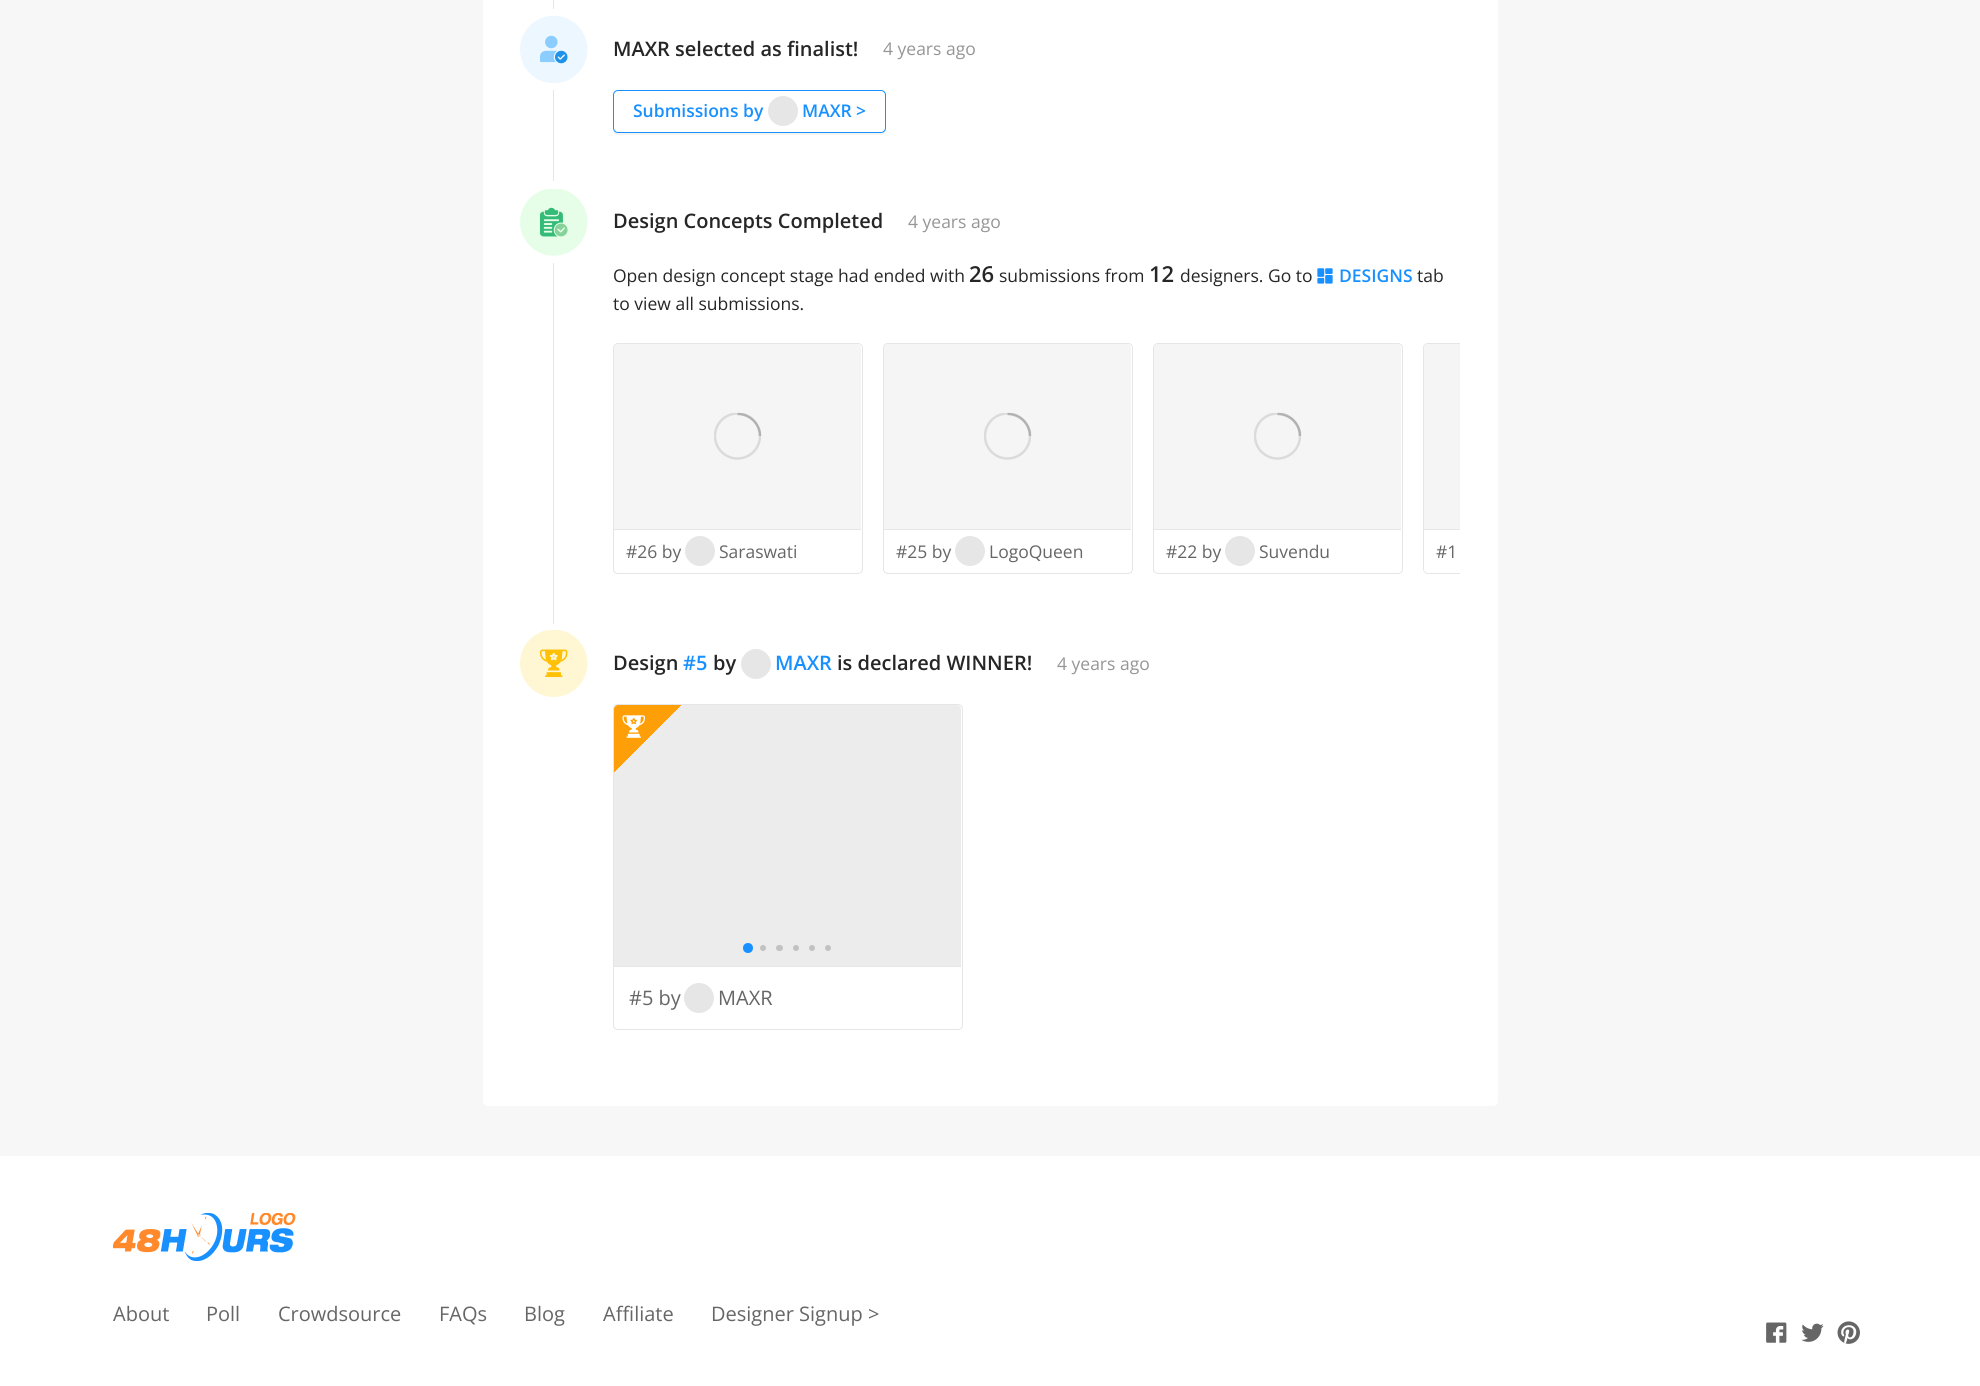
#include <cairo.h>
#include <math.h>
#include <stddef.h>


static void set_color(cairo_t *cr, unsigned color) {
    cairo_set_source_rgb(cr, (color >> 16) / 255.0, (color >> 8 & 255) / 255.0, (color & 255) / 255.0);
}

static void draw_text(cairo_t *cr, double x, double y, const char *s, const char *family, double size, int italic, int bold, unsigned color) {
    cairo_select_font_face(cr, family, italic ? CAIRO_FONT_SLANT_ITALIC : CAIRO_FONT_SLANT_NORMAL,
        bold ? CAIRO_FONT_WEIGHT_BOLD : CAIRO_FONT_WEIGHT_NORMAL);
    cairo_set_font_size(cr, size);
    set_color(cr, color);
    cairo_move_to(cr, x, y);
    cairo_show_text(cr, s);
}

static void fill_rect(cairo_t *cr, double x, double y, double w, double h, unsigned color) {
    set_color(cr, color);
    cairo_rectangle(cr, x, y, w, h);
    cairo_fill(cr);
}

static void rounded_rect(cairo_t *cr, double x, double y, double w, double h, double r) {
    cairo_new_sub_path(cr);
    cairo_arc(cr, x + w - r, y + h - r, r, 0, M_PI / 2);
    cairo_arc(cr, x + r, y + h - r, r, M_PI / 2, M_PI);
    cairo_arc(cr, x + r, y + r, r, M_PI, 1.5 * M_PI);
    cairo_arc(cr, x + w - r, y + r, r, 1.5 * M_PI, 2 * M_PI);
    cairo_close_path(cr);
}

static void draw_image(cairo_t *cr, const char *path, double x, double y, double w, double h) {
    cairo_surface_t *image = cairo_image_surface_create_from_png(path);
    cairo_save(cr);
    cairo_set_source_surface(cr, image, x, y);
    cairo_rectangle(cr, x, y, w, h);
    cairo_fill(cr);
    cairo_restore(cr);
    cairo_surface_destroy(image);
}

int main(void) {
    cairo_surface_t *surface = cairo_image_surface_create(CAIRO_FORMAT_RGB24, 1980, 1386);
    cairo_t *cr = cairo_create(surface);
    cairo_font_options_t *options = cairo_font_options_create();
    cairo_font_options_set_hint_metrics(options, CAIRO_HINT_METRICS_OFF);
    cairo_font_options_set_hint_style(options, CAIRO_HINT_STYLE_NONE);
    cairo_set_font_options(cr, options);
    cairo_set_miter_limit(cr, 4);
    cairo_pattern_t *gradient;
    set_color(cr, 0xF7F7F7);
    cairo_paint(cr);
    set_color(cr, 0xFFFFFF);
    rounded_rect(cr, 483, -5, 1015, 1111, 5);
    cairo_fill(cr);
    fill_rect(cr, 553, 0, 1, 9, 0xE6E6E6);
    draw_image(cr, "assets/img1.png", 520, 16, 68, 67);
    draw_text(cr, 613, 56, "MAXR selected as finalist!", "Open Sans SemiBold", 20, 0, 0, 0x262626);
    draw_text(cr, 883, 55, "4 years ago", "Open Sans", 17.5, 0, 0, 0x969696);
    set_color(cr, 0xF4F4F4);
    cairo_new_path(cr);
    cairo_move_to(cr, 613, 130);
    cairo_curve_to(cr, 613, 133, 615, 135, 618, 135);
    cairo_line_to(cr, 881, 135);
    cairo_curve_to(cr, 884, 135, 886, 132, 886, 129);
    cairo_curve_to(cr, 885, 131, 883, 132, 881, 132);
    cairo_line_to(cr, 618, 132);
    cairo_curve_to(cr, 616, 132, 614, 131, 613, 130);
    cairo_close_path(cr);
    cairo_fill(cr);
    rounded_rect(cr, 613.5, 90.5, 272, 42, 4.5);
    set_color(cr, 0x1890FF);
    cairo_set_line_width(cr, 1);
    cairo_stroke(cr);
    draw_text(cr, 633, 117, "Submissions by", "Open Sans SemiBold", 17.5, 0, 0, 0x1890FF);
    set_color(cr, 0xE6E6E6);
    cairo_new_path(cr);
    cairo_arc(cr, 783, 111, 15, 0, 2 * M_PI);
    cairo_fill(cr);
    draw_text(cr, 802, 117, "MAXR", "Open Sans SemiBold", 17.5, 0, 0, 0x1890FF);
    draw_text(cr, 856, 117, ">", "Open Sans SemiBold", 17.5, 0, 0, 0x1890FF);
    fill_rect(cr, 553, 90, 1, 91, 0xE6E6E6);
    draw_image(cr, "assets/img2.png", 520, 189, 68, 67);
    draw_text(cr, 613, 228, "Design Concepts Completed", "Open Sans SemiBold", 20, 0, 0, 0x262626);
    draw_text(cr, 908, 228, "4 years ago", "Open Sans", 17.5, 0, 0, 0x969696);
    draw_text(cr, 613, 282, "Open design concept stage had ended with", "Open Sans", 17.5, 0, 0, 0x262626);
    draw_text(cr, 969, 282, "26", "Open Sans SemiBold", 22, 0, 0, 0x262626);
    draw_text(cr, 999, 282, "submissions from", "Open Sans", 17.5, 0, 0, 0x262626);
    draw_text(cr, 1149, 282, "12", "Open Sans SemiBold", 22, 0, 0, 0x262626);
    draw_text(cr, 1180, 282, "designers. Go to", "Open Sans", 17.5, 0, 0, 0x262626);
    draw_image(cr, "assets/img3.png", 1317, 268, 16, 16);
    draw_text(cr, 1339, 282, "DESIGNS", "Open Sans SemiBold", 17.5, 0, 0, 0x1890FF);
    draw_text(cr, 1417, 282, "tab", "Open Sans", 17.5, 0, 0, 0x262626);
    draw_text(cr, 613, 310, "to view all submissions.", "Open Sans", 17.5, 0, 0, 0x262626);
    rounded_rect(cr, 613.5, 343.5, 249, 230, 4.5);
    set_color(cr, 0xE6E6E6);
    cairo_stroke(cr);
    set_color(cr, 0xF5F5F5);
    cairo_new_path(cr);
    cairo_move_to(cr, 618, 344);
    cairo_line_to(cr, 857, 344);
    cairo_curve_to(cr, 859, 344, 861, 346, 861, 348);
    cairo_line_to(cr, 861, 529);
    cairo_line_to(cr, 614, 529);
    cairo_line_to(cr, 614, 348);
    cairo_curve_to(cr, 614, 346, 616, 344, 618, 344);
    cairo_close_path(cr);
    cairo_fill(cr);
    cairo_save(cr);
    cairo_rectangle(cr, 714, 413, 47, 47);
    cairo_clip(cr);
    cairo_arc(cr, 737.5, 436, 22.5, 0, 2 * M_PI);
    set_color(cr, 0xDBDBDB);
    cairo_set_line_width(cr, 2.5);
    cairo_stroke(cr);
    cairo_restore(cr);
    cairo_new_path(cr);
    cairo_move_to(cr, 760, 436);
    cairo_curve_to(cr, 760, 424, 750, 414, 737.5, 414);
    cairo_set_source_rgba(cr, 0.208, 0.208, 0.208, 0.25);
    cairo_set_line_width(cr, 2.5);
    cairo_stroke(cr);
    fill_rect(cr, 614, 529, 247, 1, 0xE6E6E6);
    draw_text(cr, 626, 558, "#26 by", "Open Sans", 17.5, 0, 0, 0x666666);
    set_color(cr, 0xE6E6E6);
    cairo_new_path(cr);
    cairo_arc(cr, 700, 551, 15, 0, 2 * M_PI);
    cairo_fill(cr);
    draw_text(cr, 719, 558, "Saraswati", "Open Sans", 17.5, 0, 0, 0x666666);
    rounded_rect(cr, 883.5, 343.5, 249, 230, 4.5);
    set_color(cr, 0xE6E6E6);
    cairo_set_line_width(cr, 1);
    cairo_stroke(cr);
    set_color(cr, 0xF5F5F5);
    cairo_new_path(cr);
    cairo_move_to(cr, 888, 344);
    cairo_line_to(cr, 1127, 344);
    cairo_curve_to(cr, 1129, 344, 1131, 346, 1131, 348);
    cairo_line_to(cr, 1131, 529);
    cairo_line_to(cr, 884, 529);
    cairo_line_to(cr, 884, 348);
    cairo_curve_to(cr, 884, 346, 886, 344, 888, 344);
    cairo_close_path(cr);
    cairo_fill(cr);
    cairo_save(cr);
    cairo_rectangle(cr, 984, 413, 47, 47);
    cairo_clip(cr);
    cairo_arc(cr, 1007.5, 436, 22.5, 0, 2 * M_PI);
    set_color(cr, 0xDBDBDB);
    cairo_set_line_width(cr, 2.5);
    cairo_stroke(cr);
    cairo_restore(cr);
    cairo_new_path(cr);
    cairo_move_to(cr, 1030, 436);
    cairo_curve_to(cr, 1030, 424, 1020, 414, 1007.5, 414);
    cairo_set_source_rgba(cr, 0.208, 0.208, 0.208, 0.25);
    cairo_set_line_width(cr, 2.5);
    cairo_stroke(cr);
    fill_rect(cr, 884, 529, 247, 1, 0xE6E6E6);
    draw_text(cr, 896, 558, "#25 by", "Open Sans", 17.5, 0, 0, 0x666666);
    set_color(cr, 0xE6E6E6);
    cairo_new_path(cr);
    cairo_arc(cr, 970, 551, 15, 0, 2 * M_PI);
    cairo_fill(cr);
    draw_text(cr, 989, 558, "LogoQueen", "Open Sans", 17.5, 0, 0, 0x666666);
    rounded_rect(cr, 1153.5, 343.5, 249, 230, 4.5);
    set_color(cr, 0xE6E6E6);
    cairo_set_line_width(cr, 1);
    cairo_stroke(cr);
    set_color(cr, 0xF5F5F5);
    cairo_new_path(cr);
    cairo_move_to(cr, 1158, 344);
    cairo_line_to(cr, 1397, 344);
    cairo_curve_to(cr, 1399, 344, 1401, 346, 1401, 348);
    cairo_line_to(cr, 1401, 529);
    cairo_line_to(cr, 1154, 529);
    cairo_line_to(cr, 1154, 348);
    cairo_curve_to(cr, 1154, 346, 1156, 344, 1158, 344);
    cairo_close_path(cr);
    cairo_fill(cr);
    cairo_save(cr);
    cairo_rectangle(cr, 1254, 413, 47, 47);
    cairo_clip(cr);
    cairo_arc(cr, 1277.5, 436, 22.5, 0, 2 * M_PI);
    set_color(cr, 0xDBDBDB);
    cairo_set_line_width(cr, 2.5);
    cairo_stroke(cr);
    cairo_restore(cr);
    cairo_new_path(cr);
    cairo_move_to(cr, 1300, 436);
    cairo_curve_to(cr, 1300, 424, 1290, 414, 1277.5, 414);
    cairo_set_source_rgba(cr, 0.208, 0.208, 0.208, 0.25);
    cairo_set_line_width(cr, 2.5);
    cairo_stroke(cr);
    fill_rect(cr, 1154, 529, 247, 1, 0xE6E6E6);
    draw_text(cr, 1166, 558, "#22 by", "Open Sans", 17.5, 0, 0, 0x666666);
    set_color(cr, 0xE6E6E6);
    cairo_new_path(cr);
    cairo_arc(cr, 1240, 551, 15, 0, 2 * M_PI);
    cairo_fill(cr);
    draw_text(cr, 1259, 558, "Suvendu", "Open Sans", 17.5, 0, 0, 0x666666);
    cairo_save(cr);
    cairo_rectangle(cr, 613, 343, 847, 231);
    cairo_clip(cr);
    rounded_rect(cr, 1423.5, 343.5, 249, 230, 4.5);
    set_color(cr, 0xE6E6E6);
    cairo_set_line_width(cr, 1);
    cairo_stroke(cr);
    cairo_restore(cr);
    set_color(cr, 0xF5F5F5);
    cairo_new_path(cr);
    cairo_move_to(cr, 1428, 344);
    cairo_line_to(cr, 1460, 344);
    cairo_line_to(cr, 1460, 529);
    cairo_line_to(cr, 1424, 529);
    cairo_line_to(cr, 1424, 348);
    cairo_curve_to(cr, 1424, 346, 1426, 344, 1428, 344);
    cairo_close_path(cr);
    cairo_fill(cr);
    fill_rect(cr, 1424, 529, 36, 1, 0xE6E6E6);
    draw_text(cr, 1436, 558, "#1", "Open Sans", 17.5, 0, 0, 0x666666);
    fill_rect(cr, 553, 263, 1, 361, 0xE6E6E6);
    draw_image(cr, "assets/img4.png", 520, 630, 68, 67);
    draw_text(cr, 613, 670, "Design", "Open Sans SemiBold", 20, 0, 0, 0x262626);
    draw_text(cr, 683, 670, "#5", "Open Sans SemiBold", 20, 0, 0, 0x1890FF);
    draw_text(cr, 713, 670, "by", "Open Sans SemiBold", 20, 0, 0, 0x262626);
    set_color(cr, 0xE6E6E6);
    cairo_new_path(cr);
    cairo_arc(cr, 756, 664, 15, 0, 2 * M_PI);
    cairo_fill(cr);
    draw_text(cr, 775, 670, "MAXR", "Open Sans SemiBold", 20, 0, 0, 0x1890FF);
    draw_text(cr, 837, 670, "is declared WINNER!", "Open Sans SemiBold", 20, 0, 0, 0x262626);
    draw_text(cr, 1057, 670, "4 years ago", "Open Sans", 17.5, 0, 0, 0x969696);
    rounded_rect(cr, 613.5, 704.5, 349, 325, 4.5);
    set_color(cr, 0xE6E6E6);
    cairo_set_line_width(cr, 1);
    cairo_stroke(cr);
    set_color(cr, 0xECECEC);
    cairo_new_path(cr);
    cairo_move_to(cr, 618, 705);
    cairo_line_to(cr, 957, 705);
    cairo_curve_to(cr, 959, 705, 961, 707, 961, 709);
    cairo_line_to(cr, 961, 966);
    cairo_line_to(cr, 614, 966);
    cairo_line_to(cr, 614, 709);
    cairo_curve_to(cr, 614, 707, 616, 705, 618, 705);
    cairo_close_path(cr);
    cairo_fill(cr);
    set_color(cr, 0x1890FF);
    cairo_arc(cr, 748, 948, 5, 0, 2 * M_PI);
    cairo_fill(cr);
    set_color(cr, 0xC2C2C2);
    cairo_arc(cr, 763, 948, 3, 0, 2 * M_PI);
    cairo_fill(cr);
    rounded_rect(cr, 776, 945, 7, 6, 3);
    cairo_fill(cr);
    cairo_arc(cr, 796, 948, 3, 0, 2 * M_PI);
    cairo_fill(cr);
    cairo_arc(cr, 812, 948, 3, 0, 2 * M_PI);
    cairo_fill(cr);
    cairo_arc(cr, 828, 948, 3, 0, 2 * M_PI);
    cairo_fill(cr);
    gradient = cairo_pattern_create_linear(614, 705, 681, 773);
    cairo_pattern_add_color_stop_rgba(gradient, 0.5, 1, 0.624, 0.027, 1);
    cairo_pattern_add_color_stop_rgba(gradient, 0.5, 0.925, 0.925, 0.925, 1);
    cairo_set_source(cr, gradient);
    cairo_pattern_destroy(gradient);
    cairo_new_path(cr);
    cairo_move_to(cr, 618, 705);
    cairo_line_to(cr, 681, 705);
    cairo_line_to(cr, 681, 773);
    cairo_line_to(cr, 614, 773);
    cairo_line_to(cr, 614, 709);
    cairo_curve_to(cr, 614, 707, 616, 705, 618, 705);
    cairo_close_path(cr);
    cairo_fill(cr);
    draw_image(cr, "assets/img5.png", 622, 715, 23, 23);
    fill_rect(cr, 614, 966, 347, 1, 0xE6E6E6);
    draw_text(cr, 629, 1005, "#5 by", "Open Sans", 20, 0, 0, 0x666666);
    set_color(cr, 0xE6E6E6);
    cairo_new_path(cr);
    cairo_arc(cr, 699, 998, 15, 0, 2 * M_PI);
    cairo_fill(cr);
    draw_text(cr, 718, 1005, "MAXR", "Open Sans", 20, 0, 0, 0x666666);
    fill_rect(cr, 0, 1156, 1980, 230, 0xFFFFFF);
    draw_image(cr, "assets/img6.png", 113, 1213, 183, 48);
    draw_text(cr, 113, 1321, "About", "Open Sans", 20, 0, 0, 0x666666);
    draw_text(cr, 206, 1321, "Poll", "Open Sans", 20, 0, 0, 0x666666);
    draw_text(cr, 278, 1321, "Crowdsource", "Open Sans", 20, 0, 0, 0x666666);
    draw_text(cr, 439, 1321, "FAQs", "Open Sans", 20, 0, 0, 0x666666);
    draw_text(cr, 524, 1321, "Blog", "Open Sans", 20, 0, 0, 0x666666);
    draw_text(cr, 603, 1321, "Affiliate", "Open Sans", 20, 0, 0, 0x666666);
    draw_text(cr, 711, 1321, "Designer Signup >", "Open Sans", 20, 0, 0, 0x666666);
    draw_image(cr, "assets/img7.png", 1766, 1322, 21, 21);
    draw_image(cr, "assets/img8.png", 1801, 1323, 23, 19);
    draw_image(cr, "assets/img9.png", 1837, 1321, 23, 23);
    cairo_surface_write_to_png(surface, "output.png");
    cairo_font_options_destroy(options);
    cairo_destroy(cr);
    cairo_surface_destroy(surface);
    return 0;
}
